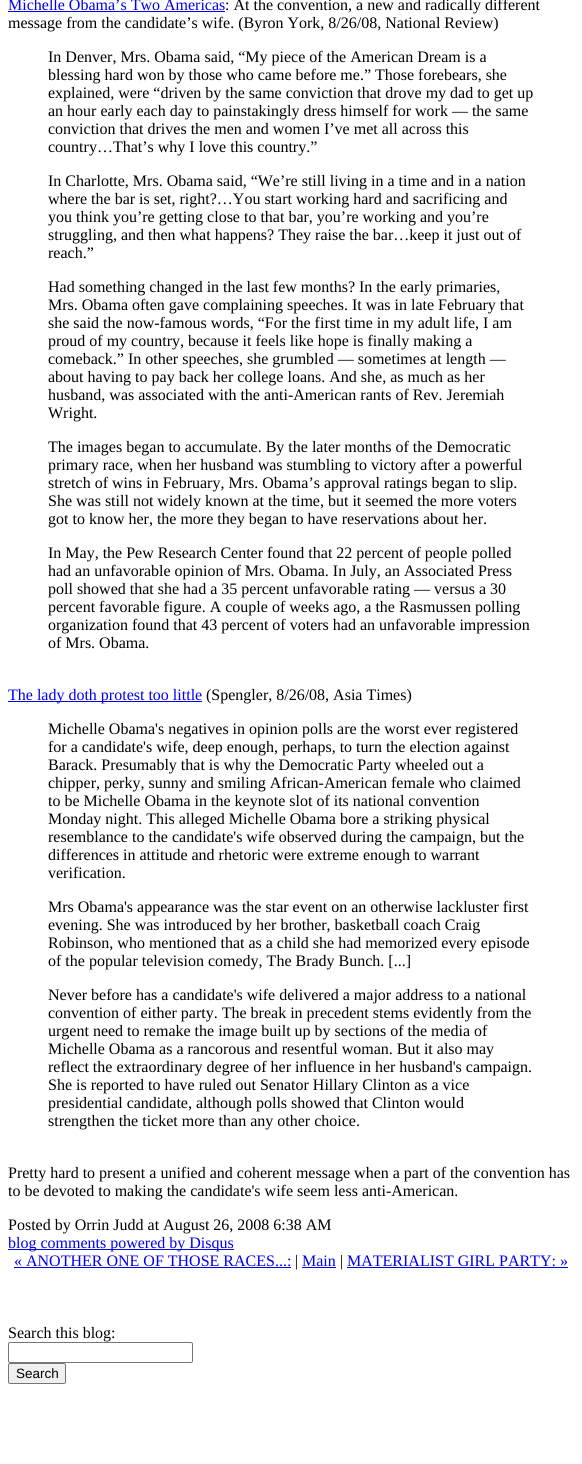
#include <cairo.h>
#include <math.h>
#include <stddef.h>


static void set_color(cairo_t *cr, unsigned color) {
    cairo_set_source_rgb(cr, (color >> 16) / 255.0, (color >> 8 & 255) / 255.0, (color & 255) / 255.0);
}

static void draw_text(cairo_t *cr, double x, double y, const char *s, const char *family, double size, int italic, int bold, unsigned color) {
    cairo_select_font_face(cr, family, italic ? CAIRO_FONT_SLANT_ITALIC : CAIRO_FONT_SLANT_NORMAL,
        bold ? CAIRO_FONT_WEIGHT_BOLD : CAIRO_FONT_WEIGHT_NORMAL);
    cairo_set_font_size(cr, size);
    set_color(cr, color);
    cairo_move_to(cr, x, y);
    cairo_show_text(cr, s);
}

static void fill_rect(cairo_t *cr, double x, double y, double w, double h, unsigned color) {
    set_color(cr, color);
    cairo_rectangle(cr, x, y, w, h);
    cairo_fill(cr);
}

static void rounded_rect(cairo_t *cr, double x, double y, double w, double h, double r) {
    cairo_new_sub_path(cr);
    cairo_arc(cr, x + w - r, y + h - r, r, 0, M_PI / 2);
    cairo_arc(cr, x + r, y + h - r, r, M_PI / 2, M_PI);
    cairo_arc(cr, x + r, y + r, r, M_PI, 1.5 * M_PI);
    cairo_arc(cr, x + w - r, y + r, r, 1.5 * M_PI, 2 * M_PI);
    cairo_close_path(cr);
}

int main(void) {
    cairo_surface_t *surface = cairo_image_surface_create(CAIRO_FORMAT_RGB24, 582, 1464);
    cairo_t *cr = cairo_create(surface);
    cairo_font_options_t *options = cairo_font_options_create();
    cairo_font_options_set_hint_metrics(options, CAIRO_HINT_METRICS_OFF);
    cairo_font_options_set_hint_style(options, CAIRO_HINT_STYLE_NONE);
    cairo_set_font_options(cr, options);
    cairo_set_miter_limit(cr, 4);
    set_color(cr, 0xFFFFFF);
    cairo_paint(cr);
    draw_text(cr, 8, 10, "Michelle Obama’s Two Americas", "Liberation Serif", 16, 0, 0, 0x0000EE);
    fill_rect(cr, 8, 11, 217, 1, 0x0000EE);
    draw_text(cr, 225, 10, ": At the convention, a new and radically different", "Liberation Serif", 16, 0, 0, 0x000000);
    draw_text(cr, 8, 28, "message from the candidate’s wife. (Byron York, 8/26/08, National Review)", "Liberation Serif", 16, 0, 0, 0x000000);
    draw_text(cr, 48, 62, "In Denver, Mrs. Obama said, “My piece of the American Dream is a", "Liberation Serif", 16, 0, 0, 0x000000);
    draw_text(cr, 48, 80, "blessing hard won by those who came before me.” Those forebears, she", "Liberation Serif", 16, 0, 0, 0x000000);
    draw_text(cr, 48, 98, "explained, were “driven by the same conviction that drove my dad to get up", "Liberation Serif", 16, 0, 0, 0x000000);
    draw_text(cr, 48, 116, "an hour early each day to painstakingly dress himself for work — the same", "Liberation Serif", 16, 0, 0, 0x000000);
    draw_text(cr, 48, 134, "conviction that drives the men and women I’ve met all across this", "Liberation Serif", 16, 0, 0, 0x000000);
    draw_text(cr, 48, 152, "country…That’s why I love this country.”", "Liberation Serif", 16, 0, 0, 0x000000);
    draw_text(cr, 48, 186, "In Charlotte, Mrs. Obama said, “We’re still living in a time and in a nation", "Liberation Serif", 16, 0, 0, 0x000000);
    draw_text(cr, 48, 204, "where the bar is set, right?…You start working hard and sacrificing and", "Liberation Serif", 16, 0, 0, 0x000000);
    draw_text(cr, 48, 222, "you think you’re getting close to that bar, you’re working and you’re", "Liberation Serif", 16, 0, 0, 0x000000);
    draw_text(cr, 48, 240, "struggling, and then what happens? They raise the bar…keep it just out of", "Liberation Serif", 16, 0, 0, 0x000000);
    draw_text(cr, 48, 258, "reach.”", "Liberation Serif", 16, 0, 0, 0x000000);
    draw_text(cr, 48, 292, "Had something changed in the last few months? In the early primaries,", "Liberation Serif", 16, 0, 0, 0x000000);
    draw_text(cr, 48, 310, "Mrs. Obama often gave complaining speeches. It was in late February that", "Liberation Serif", 16, 0, 0, 0x000000);
    draw_text(cr, 48, 328, "she said the now-famous words, “For the first time in my adult life, I am", "Liberation Serif", 16, 0, 0, 0x000000);
    draw_text(cr, 48, 346, "proud of my country, because it feels like hope is finally making a", "Liberation Serif", 16, 0, 0, 0x000000);
    draw_text(cr, 48, 364, "comeback.” In other speeches, she grumbled — sometimes at length —", "Liberation Serif", 16, 0, 0, 0x000000);
    draw_text(cr, 48, 382, "about having to pay back her college loans. And she, as much as her", "Liberation Serif", 16, 0, 0, 0x000000);
    draw_text(cr, 48, 400, "husband, was associated with the anti-American rants of Rev. Jeremiah", "Liberation Serif", 16, 0, 0, 0x000000);
    draw_text(cr, 48, 418, "Wright.", "Liberation Serif", 16, 0, 0, 0x000000);
    draw_text(cr, 48, 452, "The images began to accumulate. By the later months of the Democratic", "Liberation Serif", 16, 0, 0, 0x000000);
    draw_text(cr, 48, 470, "primary race, when her husband was stumbling to victory after a powerful", "Liberation Serif", 16, 0, 0, 0x000000);
    draw_text(cr, 48, 488, "stretch of wins in February, Mrs. Obama’s approval ratings began to slip.", "Liberation Serif", 16, 0, 0, 0x000000);
    draw_text(cr, 48, 506, "She was still not widely known at the time, but it seemed the more voters", "Liberation Serif", 16, 0, 0, 0x000000);
    draw_text(cr, 48, 524, "got to know her, the more they began to have reservations about her.", "Liberation Serif", 16, 0, 0, 0x000000);
    draw_text(cr, 48, 558, "In May, the Pew Research Center found that 22 percent of people polled", "Liberation Serif", 16, 0, 0, 0x000000);
    draw_text(cr, 48, 576, "had an unfavorable opinion of Mrs. Obama. In July, an Associated Press", "Liberation Serif", 16, 0, 0, 0x000000);
    draw_text(cr, 48, 594, "poll showed that she had a 35 percent unfavorable rating — versus a 30", "Liberation Serif", 16, 0, 0, 0x000000);
    draw_text(cr, 48, 612, "percent favorable figure. A couple of weeks ago, a the Rasmussen polling", "Liberation Serif", 16, 0, 0, 0x000000);
    draw_text(cr, 48, 630, "organization found that 43 percent of voters had an unfavorable impression", "Liberation Serif", 16, 0, 0, 0x000000);
    draw_text(cr, 48, 648, "of Mrs. Obama.", "Liberation Serif", 16, 0, 0, 0x000000);
    fill_rect(cr, 8, 701, 194, 1, 0x0000EE);
    draw_text(cr, 8, 700, "The lady doth protest too little", "Liberation Serif", 16, 0, 0, 0x0000EE);
    draw_text(cr, 206, 700, "(Spengler, 8/26/08, Asia Times)", "Liberation Serif", 16, 0, 0, 0x000000);
    draw_text(cr, 48, 734, "Michelle Obama's negatives in opinion polls are the worst ever registered", "Liberation Serif", 16, 0, 0, 0x000000);
    draw_text(cr, 48, 752, "for a candidate's wife, deep enough, perhaps, to turn the election against", "Liberation Serif", 16, 0, 0, 0x000000);
    draw_text(cr, 48, 770, "Barack. Presumably that is why the Democratic Party wheeled out a", "Liberation Serif", 16, 0, 0, 0x000000);
    draw_text(cr, 48, 788, "chipper, perky, sunny and smiling African-American female who claimed", "Liberation Serif", 16, 0, 0, 0x000000);
    draw_text(cr, 48, 806, "to be Michelle Obama in the keynote slot of its national convention", "Liberation Serif", 16, 0, 0, 0x000000);
    draw_text(cr, 48, 824, "Monday night. This alleged Michelle Obama bore a striking physical", "Liberation Serif", 16, 0, 0, 0x000000);
    draw_text(cr, 48, 842, "resemblance to the candidate's wife observed during the campaign, but the", "Liberation Serif", 16, 0, 0, 0x000000);
    draw_text(cr, 48, 860, "differences in attitude and rhetoric were extreme enough to warrant", "Liberation Serif", 16, 0, 0, 0x000000);
    draw_text(cr, 48, 878, "verification.", "Liberation Serif", 16, 0, 0, 0x000000);
    draw_text(cr, 48, 912, "Mrs Obama's appearance was the star event on an otherwise lackluster first", "Liberation Serif", 16, 0, 0, 0x000000);
    draw_text(cr, 48, 930, "evening. She was introduced by her brother, basketball coach Craig", "Liberation Serif", 16, 0, 0, 0x000000);
    draw_text(cr, 48, 948, "Robinson, who mentioned that as a child she had memorized every episode", "Liberation Serif", 16, 0, 0, 0x000000);
    draw_text(cr, 48, 966, "of the popular television comedy, The Brady Bunch. [...]", "Liberation Serif", 16, 0, 0, 0x000000);
    draw_text(cr, 48, 1000, "Never before has a candidate's wife delivered a major address to a national", "Liberation Serif", 16, 0, 0, 0x000000);
    draw_text(cr, 48, 1018, "convention of either party. The break in precedent stems evidently from the", "Liberation Serif", 16, 0, 0, 0x000000);
    draw_text(cr, 48, 1036, "urgent need to remake the image built up by sections of the media of", "Liberation Serif", 16, 0, 0, 0x000000);
    draw_text(cr, 48, 1054, "Michelle Obama as a rancorous and resentful woman. But it also may", "Liberation Serif", 16, 0, 0, 0x000000);
    draw_text(cr, 48, 1072, "reflect the extraordinary degree of her influence in her husband's campaign.", "Liberation Serif", 16, 0, 0, 0x000000);
    draw_text(cr, 48, 1090, "She is reported to have ruled out Senator Hillary Clinton as a vice", "Liberation Serif", 16, 0, 0, 0x000000);
    draw_text(cr, 48, 1108, "presidential candidate, although polls showed that Clinton would", "Liberation Serif", 16, 0, 0, 0x000000);
    draw_text(cr, 48, 1126, "strengthen the ticket more than any other choice.", "Liberation Serif", 16, 0, 0, 0x000000);
    draw_text(cr, 8, 1178, "Pretty hard to present a unified and coherent message when a part of the convention has", "Liberation Serif", 16, 0, 0, 0x000000);
    draw_text(cr, 8, 1196, "to be devoted to making the candidate's wife seem less anti-American.", "Liberation Serif", 16, 0, 0, 0x000000);
    draw_text(cr, 8, 1230, "Posted by Orrin Judd at August 26, 2008 6:38 AM", "Liberation Serif", 16, 0, 0, 0x000000);
    fill_rect(cr, 8, 1249, 226, 1, 0x0000EE);
    draw_text(cr, 8, 1248, "blog comments powered by Disqus", "Liberation Serif", 16, 0, 0, 0x0000EE);
    draw_text(cr, 14, 1266, "« ANOTHER ONE OF THOSE RACES...:", "Liberation Serif", 16, 0, 0, 0x0000EE);
    fill_rect(cr, 14, 1267, 277, 1, 0x0000EE);
    draw_text(cr, 295, 1266, "|", "Liberation Serif", 16, 0, 0, 0x000000);
    draw_text(cr, 302, 1266, "Main", "Liberation Serif", 16, 0, 0, 0x0000EE);
    fill_rect(cr, 302, 1267, 34, 1, 0x0000EE);
    draw_text(cr, 340, 1266, "|", "Liberation Serif", 16, 0, 0, 0x000000);
    draw_text(cr, 347, 1266, "MATERIALIST GIRL PARTY: »", "Liberation Serif", 16, 0, 0, 0x0000EE);
    fill_rect(cr, 347, 1267, 221, 1, 0x0000EE);
    draw_text(cr, 8, 1338, "Search this blog:", "Liberation Serif", 16, 0, 0, 0x000000);
    rounded_rect(cr, 8.5, 1342.5, 184, 20, 1.5);
    set_color(cr, 0x767676);
    cairo_set_line_width(cr, 1);
    cairo_stroke(cr);
    set_color(cr, 0xEFEFEF);
    rounded_rect(cr, 8.5, 1363.5, 57, 20, 1.5);
    cairo_fill_preserve(cr);
    set_color(cr, 0x767676);
    cairo_stroke(cr);
    draw_text(cr, 16, 1378, "Search", "Liberation Sans", 13.5, 0, 0, 0x000000);
    cairo_surface_write_to_png(surface, "output.png");
    cairo_font_options_destroy(options);
    cairo_destroy(cr);
    cairo_surface_destroy(surface);
    return 0;
}
